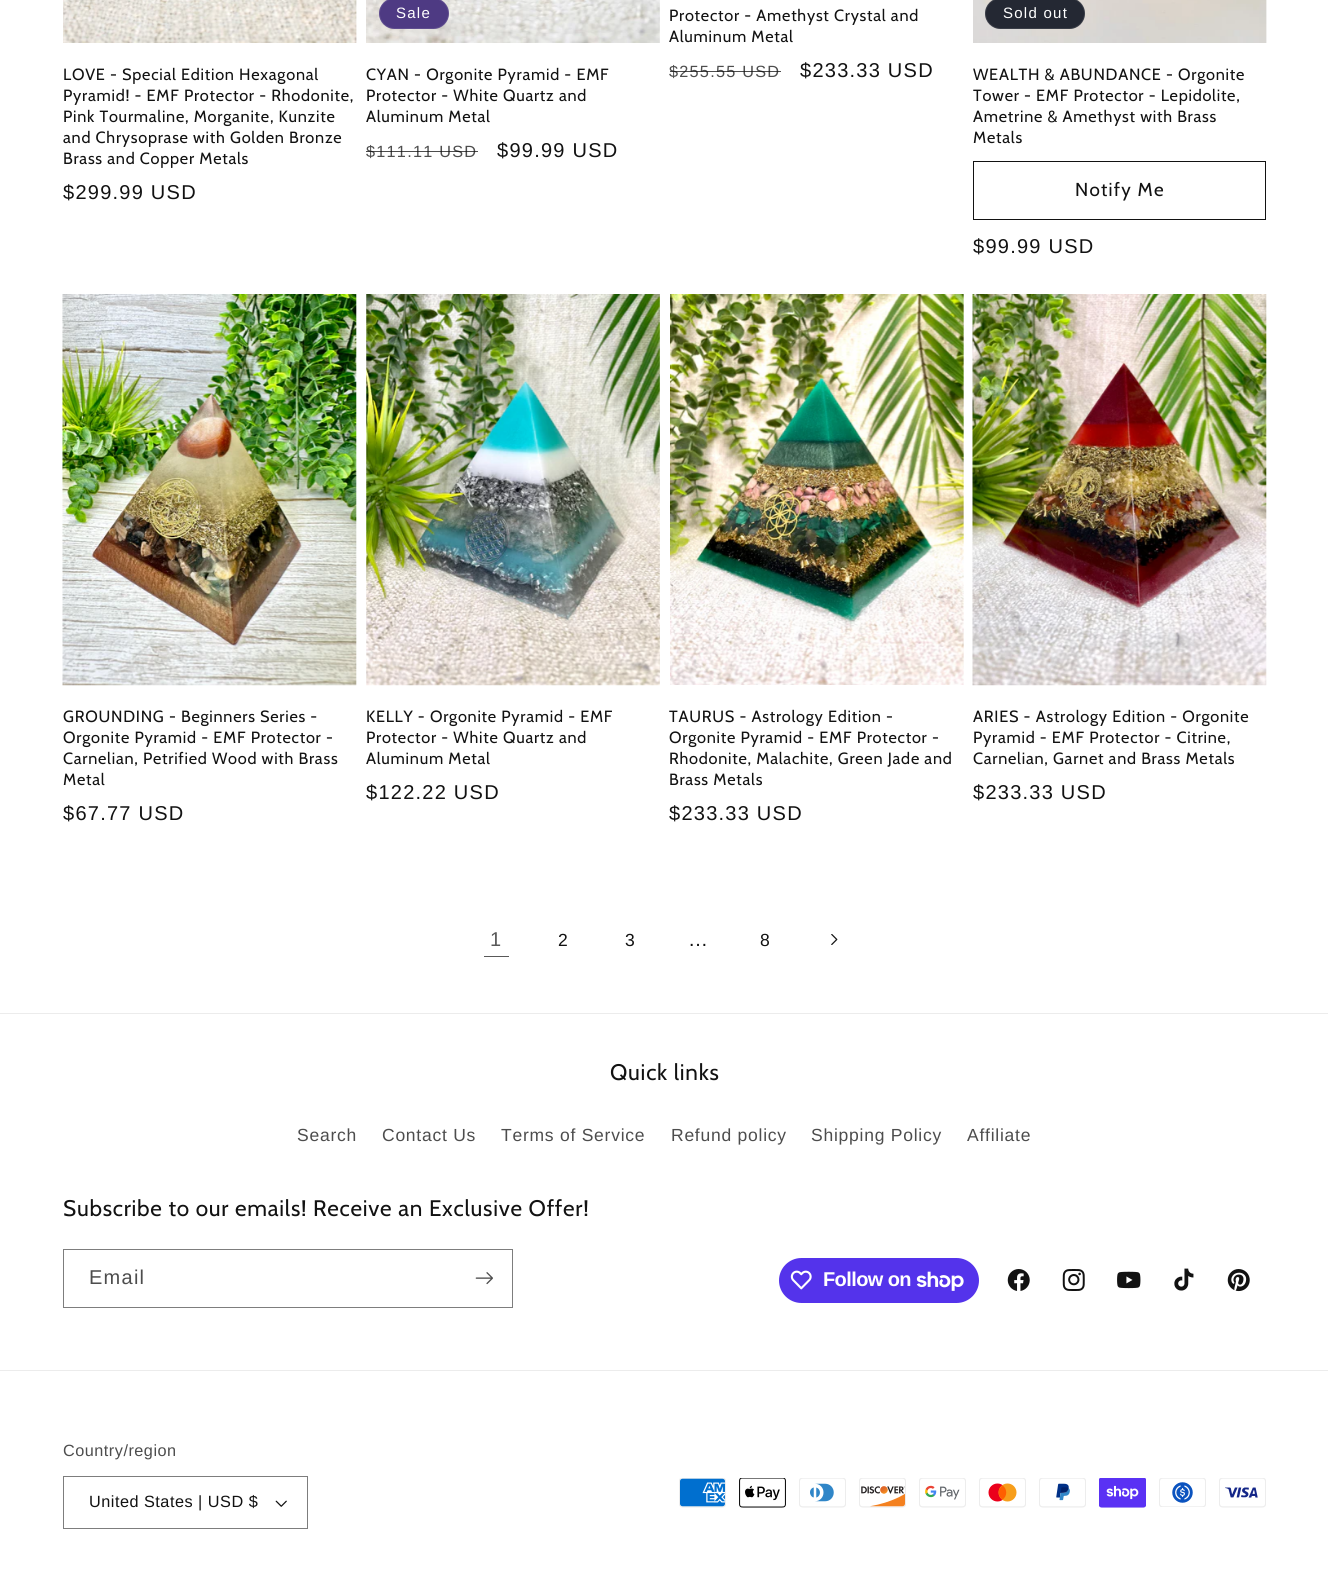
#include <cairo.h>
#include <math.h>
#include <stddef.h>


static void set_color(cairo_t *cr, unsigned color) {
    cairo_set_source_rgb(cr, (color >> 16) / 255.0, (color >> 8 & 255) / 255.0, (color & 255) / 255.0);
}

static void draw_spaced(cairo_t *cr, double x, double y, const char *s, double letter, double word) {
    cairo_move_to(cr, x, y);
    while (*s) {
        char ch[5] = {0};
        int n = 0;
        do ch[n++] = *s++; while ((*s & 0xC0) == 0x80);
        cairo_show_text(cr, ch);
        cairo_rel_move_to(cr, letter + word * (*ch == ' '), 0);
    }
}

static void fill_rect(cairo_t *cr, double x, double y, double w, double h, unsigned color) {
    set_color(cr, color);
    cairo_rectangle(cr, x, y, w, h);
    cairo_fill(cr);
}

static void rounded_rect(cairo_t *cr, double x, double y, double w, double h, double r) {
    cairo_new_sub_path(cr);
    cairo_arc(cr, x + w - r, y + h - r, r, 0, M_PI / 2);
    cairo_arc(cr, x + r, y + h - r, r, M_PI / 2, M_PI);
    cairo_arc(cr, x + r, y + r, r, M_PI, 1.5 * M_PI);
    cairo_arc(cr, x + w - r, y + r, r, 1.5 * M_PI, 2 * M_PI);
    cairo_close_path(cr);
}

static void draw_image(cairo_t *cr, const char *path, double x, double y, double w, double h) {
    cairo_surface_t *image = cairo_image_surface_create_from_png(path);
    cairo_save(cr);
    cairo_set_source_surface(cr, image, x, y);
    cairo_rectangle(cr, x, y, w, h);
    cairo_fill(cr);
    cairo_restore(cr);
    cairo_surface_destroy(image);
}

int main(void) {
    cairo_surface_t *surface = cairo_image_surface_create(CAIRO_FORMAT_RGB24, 1328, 1581);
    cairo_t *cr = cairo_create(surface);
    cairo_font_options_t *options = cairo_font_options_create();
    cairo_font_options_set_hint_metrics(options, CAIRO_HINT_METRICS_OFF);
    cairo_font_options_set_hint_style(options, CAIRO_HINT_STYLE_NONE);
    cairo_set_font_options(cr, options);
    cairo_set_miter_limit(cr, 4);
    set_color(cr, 0xFFFFFF);
    cairo_paint(cr);
    draw_image(cr, "assets/img1.png", 366, 0, 294, 43);
    set_color(cr, 0x4E3A83);
    rounded_rect(cr, 379, -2, 70, 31, 15.5);
    cairo_fill(cr);
    rounded_rect(cr, 379.5, -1.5, 69, 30, 15);
    cairo_set_source_rgba(cr, 1, 1, 1, 0.1);
    cairo_set_line_width(cr, 1);
    cairo_stroke(cr);
    cairo_select_font_face(cr, "Arimo", CAIRO_FONT_SLANT_NORMAL, CAIRO_FONT_WEIGHT_NORMAL);
    cairo_set_font_size(cr, 15);
    set_color(cr, 0xFFFFFF);
    draw_spaced(cr, 396, 18, "Sale", 1.25, 0);
    cairo_select_font_face(cr, "Cabin", CAIRO_FONT_SLANT_NORMAL, CAIRO_FONT_WEIGHT_NORMAL);
    cairo_set_font_size(cr, 16.25);
    set_color(cr, 0x121212);
    draw_spaced(cr, 366, 80, "CYAN - Orgonite Pyramid - EMF", 0.75, 0);
    draw_spaced(cr, 366, 101, "Protector - White Quartz and", 0.75, 0);
    draw_spaced(cr, 366, 122, "Aluminum Metal", 0.75, 0);
    cairo_select_font_face(cr, "Arimo", CAIRO_FONT_SLANT_NORMAL, CAIRO_FONT_WEIGHT_NORMAL);
    set_color(cr, 0x4D4D4D);
    draw_spaced(cr, 366, 157, "$111.11 USD", 1.25, 0);
    cairo_set_source_rgba(cr, 0.071, 0.071, 0.071, 0.75);
    cairo_rectangle(cr, 366, 151, 112, 1);
    cairo_fill(cr);
    cairo_set_font_size(cr, 20);
    set_color(cr, 0x121212);
    draw_spaced(cr, 497, 157, "$99.99 USD", 1.25, 0);
    cairo_select_font_face(cr, "Cabin", CAIRO_FONT_SLANT_NORMAL, CAIRO_FONT_WEIGHT_NORMAL);
    cairo_set_font_size(cr, 16.25);
    draw_spaced(cr, 669, 21, "Protector - Amethyst Crystal and", 0.75, 0);
    draw_spaced(cr, 669, 42, "Aluminum Metal", 0.75, 0);
    cairo_select_font_face(cr, "Arimo", CAIRO_FONT_SLANT_NORMAL, CAIRO_FONT_WEIGHT_NORMAL);
    set_color(cr, 0x4D4D4D);
    draw_spaced(cr, 669, 77, "$255.55 USD", 1.25, 0);
    cairo_set_source_rgba(cr, 0.071, 0.071, 0.071, 0.75);
    cairo_rectangle(cr, 670, 71, 111, 1);
    cairo_fill(cr);
    cairo_set_font_size(cr, 20);
    set_color(cr, 0x121212);
    draw_spaced(cr, 800, 77, "$233.33 USD", 1.25, 0);
    draw_image(cr, "assets/img2.png", 973, 0, 294, 43);
    set_color(cr, 0x242833);
    rounded_rect(cr, 985, -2, 100, 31, 15.5);
    cairo_fill(cr);
    rounded_rect(cr, 985.5, -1.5, 99, 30, 15);
    cairo_set_source_rgba(cr, 1, 1, 1, 0.1);
    cairo_stroke(cr);
    cairo_set_font_size(cr, 15);
    set_color(cr, 0xFFFFFF);
    draw_spaced(cr, 1003, 18, "Sold out", 1.25, 0);
    cairo_select_font_face(cr, "Cabin", CAIRO_FONT_SLANT_NORMAL, CAIRO_FONT_WEIGHT_NORMAL);
    cairo_set_font_size(cr, 16.25);
    set_color(cr, 0x121212);
    draw_spaced(cr, 973, 80, "WEALTH & ABUNDANCE - Orgonite", 0.75, 0);
    draw_spaced(cr, 973, 101, "Tower - EMF Protector - Lepidolite,", 0.75, 0);
    draw_spaced(cr, 973, 122, "Ametrine & Amethyst with Brass", 0.75, 0);
    draw_spaced(cr, 973, 143, "Metals", 0.75, 0);
    cairo_rectangle(cr, 973.5, 161.5, 292, 58);
    cairo_stroke(cr);
    cairo_set_font_size(cr, 18.75);
    draw_spaced(cr, 1075, 196, "Notify Me", 1.25, 0);
    cairo_select_font_face(cr, "Arimo", CAIRO_FONT_SLANT_NORMAL, CAIRO_FONT_WEIGHT_NORMAL);
    cairo_set_font_size(cr, 20);
    draw_spaced(cr, 973, 253, "$99.99 USD", 1.25, 0);
    draw_image(cr, "assets/img3.png", 63, 0, 294, 43);
    cairo_select_font_face(cr, "Cabin", CAIRO_FONT_SLANT_NORMAL, CAIRO_FONT_WEIGHT_NORMAL);
    cairo_set_font_size(cr, 16.25);
    draw_spaced(cr, 63, 80, "LOVE - Special Edition Hexagonal", 0.75, 0);
    draw_spaced(cr, 63, 101, "Pyramid! - EMF Protector - Rhodonite,", 0.75, 0);
    draw_spaced(cr, 63, 122, "Pink Tourmaline, Morganite, Kunzite", 0.75, 0);
    draw_spaced(cr, 63, 143, "and Chrysoprase with Golden Bronze", 0.75, 0);
    draw_spaced(cr, 63, 164, "Brass and Copper Metals", 0.75, 0);
    cairo_select_font_face(cr, "Arimo", CAIRO_FONT_SLANT_NORMAL, CAIRO_FONT_WEIGHT_NORMAL);
    cairo_set_font_size(cr, 20);
    draw_spaced(cr, 63, 199, "$299.99 USD", 1.25, 0);
    draw_image(cr, "assets/img4.png", 62, 294, 295, 392);
    cairo_select_font_face(cr, "Cabin", CAIRO_FONT_SLANT_NORMAL, CAIRO_FONT_WEIGHT_NORMAL);
    cairo_set_font_size(cr, 16.25);
    draw_spaced(cr, 63, 722, "GROUNDING - Beginners Series -", 0.75, 0);
    draw_spaced(cr, 63, 743, "Orgonite Pyramid - EMF Protector -", 0.75, 0);
    draw_spaced(cr, 63, 764, "Carnelian, Petrified Wood with Brass", 0.75, 0);
    draw_spaced(cr, 63, 785, "Metal", 0.75, 0);
    cairo_select_font_face(cr, "Arimo", CAIRO_FONT_SLANT_NORMAL, CAIRO_FONT_WEIGHT_NORMAL);
    cairo_set_font_size(cr, 20);
    draw_spaced(cr, 63, 820, "$67.77 USD", 1.25, 0);
    draw_image(cr, "assets/img5.png", 366, 294, 294, 392);
    cairo_select_font_face(cr, "Cabin", CAIRO_FONT_SLANT_NORMAL, CAIRO_FONT_WEIGHT_NORMAL);
    cairo_set_font_size(cr, 16.25);
    draw_spaced(cr, 366, 722, "KELLY - Orgonite Pyramid - EMF", 0.75, 0);
    draw_spaced(cr, 366, 743, "Protector - White Quartz and", 0.75, 0);
    draw_spaced(cr, 366, 764, "Aluminum Metal", 0.75, 0);
    cairo_select_font_face(cr, "Arimo", CAIRO_FONT_SLANT_NORMAL, CAIRO_FONT_WEIGHT_NORMAL);
    cairo_set_font_size(cr, 20);
    draw_spaced(cr, 366, 799, "$122.22 USD", 1.25, 0);
    draw_image(cr, "assets/img6.png", 670, 294, 294, 391);
    cairo_select_font_face(cr, "Cabin", CAIRO_FONT_SLANT_NORMAL, CAIRO_FONT_WEIGHT_NORMAL);
    cairo_set_font_size(cr, 16.25);
    draw_spaced(cr, 669, 722, "TAURUS - Astrology Edition -", 0.75, 0);
    draw_spaced(cr, 669, 743, "Orgonite Pyramid - EMF Protector -", 0.75, 0);
    draw_spaced(cr, 669, 764, "Rhodonite, Malachite, Green Jade and", 0.75, 0);
    draw_spaced(cr, 669, 785, "Brass Metals", 0.75, 0);
    cairo_select_font_face(cr, "Arimo", CAIRO_FONT_SLANT_NORMAL, CAIRO_FONT_WEIGHT_NORMAL);
    cairo_set_font_size(cr, 20);
    draw_spaced(cr, 669, 820, "$233.33 USD", 1.25, 0);
    draw_image(cr, "assets/img7.png", 972, 294, 295, 392);
    cairo_select_font_face(cr, "Cabin", CAIRO_FONT_SLANT_NORMAL, CAIRO_FONT_WEIGHT_NORMAL);
    cairo_set_font_size(cr, 16.25);
    draw_spaced(cr, 973, 722, "ARIES - Astrology Edition - Orgonite", 0.75, 0);
    draw_spaced(cr, 973, 743, "Pyramid - EMF Protector - Citrine,", 0.75, 0);
    draw_spaced(cr, 973, 764, "Carnelian, Garnet and Brass Metals", 0.75, 0);
    cairo_select_font_face(cr, "Arimo", CAIRO_FONT_SLANT_NORMAL, CAIRO_FONT_WEIGHT_NORMAL);
    cairo_set_font_size(cr, 20);
    draw_spaced(cr, 973, 799, "$233.33 USD", 1.25, 0);
    set_color(cr, 0x595959);
    draw_spaced(cr, 490, 946, "1", 0.75, 0);
    fill_rect(cr, 484, 956, 25, 1, 0x595959);
    cairo_set_font_size(cr, 17.5);
    set_color(cr, 0x121212);
    draw_spaced(cr, 558, 946, "2", 0.75, 0);
    draw_spaced(cr, 625, 946, "3", 0.75, 0);
    cairo_set_font_size(cr, 20);
    draw_spaced(cr, 688, 946, "…", 0.75, 0);
    cairo_set_font_size(cr, 17.5);
    draw_spaced(cr, 760, 946, "8", 0.75, 0);
    draw_image(cr, "assets/img8.png", 831, 934, 7, 11);
    fill_rect(cr, 0, 1013, 1328, 1, 0xECECEC);
    cairo_select_font_face(cr, "Cabin", CAIRO_FONT_SLANT_NORMAL, CAIRO_FONT_WEIGHT_NORMAL);
    cairo_set_font_size(cr, 22.5);
    set_color(cr, 0x121212);
    draw_spaced(cr, 610, 1080, "Quick links", 0.75, 0);
    cairo_select_font_face(cr, "Arimo", CAIRO_FONT_SLANT_NORMAL, CAIRO_FONT_WEIGHT_NORMAL);
    cairo_set_font_size(cr, 17.5);
    set_color(cr, 0x4D4D4D);
    draw_spaced(cr, 297, 1141, "Search", 0.75, 0);
    draw_spaced(cr, 382, 1141, "Contact Us", 0.75, 0);
    draw_spaced(cr, 501, 1141, "Terms of Service", 0.75, 0);
    draw_spaced(cr, 671, 1141, "Refund policy", 0.75, 0);
    draw_spaced(cr, 811, 1141, "Shipping Policy", 0.75, 0);
    draw_spaced(cr, 967, 1141, "Affiliate", 0.75, 0);
    cairo_select_font_face(cr, "Cabin", CAIRO_FONT_SLANT_NORMAL, CAIRO_FONT_WEIGHT_NORMAL);
    cairo_set_font_size(cr, 22.5);
    set_color(cr, 0x121212);
    draw_spaced(cr, 63, 1216, "Subscribe to our emails! Receive an Exclusive Offer!", 0.75, 0);
    cairo_rectangle(cr, 63.5, 1249.5, 449, 58);
    set_color(cr, 0x7D7D7D);
    cairo_stroke(cr);
    cairo_select_font_face(cr, "Arimo", CAIRO_FONT_SLANT_NORMAL, CAIRO_FONT_WEIGHT_NORMAL);
    cairo_set_font_size(cr, 20);
    set_color(cr, 0x4D4D4D);
    draw_spaced(cr, 89, 1284, "Email", 1.25, 0);
    draw_image(cr, "assets/img9.png", 475, 1272, 18, 13);
    set_color(cr, 0x5433EB);
    rounded_rect(cr, 779, 1258, 200, 45, 22.5);
    cairo_fill(cr);
    draw_image(cr, "assets/img10.png", 790, 1270, 22, 20);
    cairo_select_font_face(cr, "Liberation Sans", CAIRO_FONT_SLANT_NORMAL, CAIRO_FONT_WEIGHT_BOLD);
    set_color(cr, 0xFFFFFF);
    draw_spaced(cr, 823, 1286, "Follow on", -0.6, 0);
    draw_image(cr, "assets/img11.png", 916, 1271, 48, 20);
    draw_image(cr, "assets/img12.png", 1007, 1269, 23, 22);
    draw_image(cr, "assets/img13.png", 1062, 1269, 23, 22);
    draw_image(cr, "assets/img14.png", 1117, 1271, 24, 18);
    draw_image(cr, "assets/img15.png", 1174, 1268, 20, 23);
    draw_image(cr, "assets/img16.png", 1227, 1269, 23, 23);
    fill_rect(cr, 0, 1370, 1328, 1, 0xECECEC);
    cairo_select_font_face(cr, "Arimo", CAIRO_FONT_SLANT_NORMAL, CAIRO_FONT_WEIGHT_NORMAL);
    cairo_set_font_size(cr, 16.25);
    set_color(cr, 0x4D4D4D);
    draw_spaced(cr, 63, 1456, "Country/region", 0.5, 0);
    draw_image(cr, "assets/img17.png", 275, 1500, 12, 7);
    cairo_rectangle(cr, 63.5, 1476.5, 244, 52);
    set_color(cr, 0x7D7D7D);
    cairo_stroke(cr);
    set_color(cr, 0x121212);
    draw_spaced(cr, 89, 1507, "United States | USD $", 0.5, 0);
    draw_image(cr, "assets/img18.png", 679, 1478, 47, 30);
    draw_image(cr, "assets/img19.png", 739, 1478, 47, 30);
    draw_image(cr, "assets/img20.png", 799, 1478, 47, 30);
    draw_image(cr, "assets/img21.png", 859, 1478, 47, 30);
    draw_image(cr, "assets/img22.png", 919, 1478, 47, 30);
    draw_image(cr, "assets/img23.png", 979, 1478, 47, 30);
    draw_image(cr, "assets/img24.png", 1039, 1478, 47, 30);
    draw_image(cr, "assets/img25.png", 1099, 1478, 47, 30);
    draw_image(cr, "assets/img26.png", 1159, 1478, 47, 29);
    draw_image(cr, "assets/img27.png", 1219, 1478, 47, 30);
    cairo_surface_write_to_png(surface, "output.png");
    cairo_font_options_destroy(options);
    cairo_destroy(cr);
    cairo_surface_destroy(surface);
    return 0;
}
